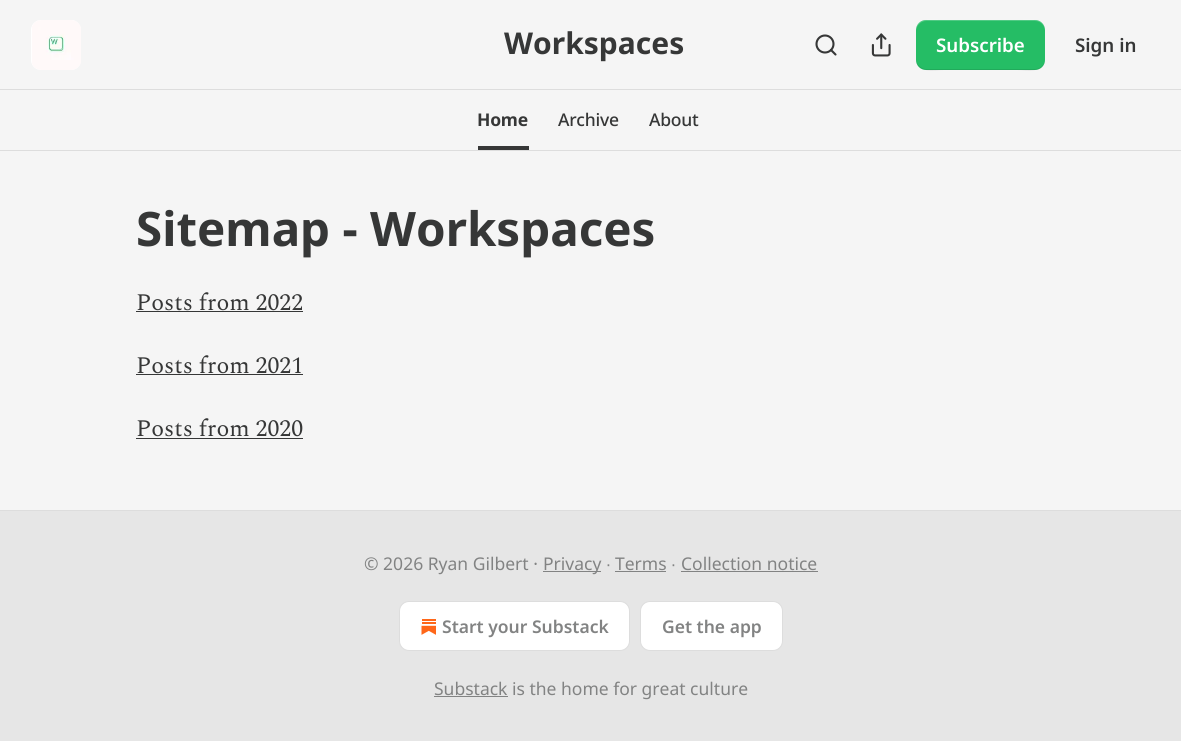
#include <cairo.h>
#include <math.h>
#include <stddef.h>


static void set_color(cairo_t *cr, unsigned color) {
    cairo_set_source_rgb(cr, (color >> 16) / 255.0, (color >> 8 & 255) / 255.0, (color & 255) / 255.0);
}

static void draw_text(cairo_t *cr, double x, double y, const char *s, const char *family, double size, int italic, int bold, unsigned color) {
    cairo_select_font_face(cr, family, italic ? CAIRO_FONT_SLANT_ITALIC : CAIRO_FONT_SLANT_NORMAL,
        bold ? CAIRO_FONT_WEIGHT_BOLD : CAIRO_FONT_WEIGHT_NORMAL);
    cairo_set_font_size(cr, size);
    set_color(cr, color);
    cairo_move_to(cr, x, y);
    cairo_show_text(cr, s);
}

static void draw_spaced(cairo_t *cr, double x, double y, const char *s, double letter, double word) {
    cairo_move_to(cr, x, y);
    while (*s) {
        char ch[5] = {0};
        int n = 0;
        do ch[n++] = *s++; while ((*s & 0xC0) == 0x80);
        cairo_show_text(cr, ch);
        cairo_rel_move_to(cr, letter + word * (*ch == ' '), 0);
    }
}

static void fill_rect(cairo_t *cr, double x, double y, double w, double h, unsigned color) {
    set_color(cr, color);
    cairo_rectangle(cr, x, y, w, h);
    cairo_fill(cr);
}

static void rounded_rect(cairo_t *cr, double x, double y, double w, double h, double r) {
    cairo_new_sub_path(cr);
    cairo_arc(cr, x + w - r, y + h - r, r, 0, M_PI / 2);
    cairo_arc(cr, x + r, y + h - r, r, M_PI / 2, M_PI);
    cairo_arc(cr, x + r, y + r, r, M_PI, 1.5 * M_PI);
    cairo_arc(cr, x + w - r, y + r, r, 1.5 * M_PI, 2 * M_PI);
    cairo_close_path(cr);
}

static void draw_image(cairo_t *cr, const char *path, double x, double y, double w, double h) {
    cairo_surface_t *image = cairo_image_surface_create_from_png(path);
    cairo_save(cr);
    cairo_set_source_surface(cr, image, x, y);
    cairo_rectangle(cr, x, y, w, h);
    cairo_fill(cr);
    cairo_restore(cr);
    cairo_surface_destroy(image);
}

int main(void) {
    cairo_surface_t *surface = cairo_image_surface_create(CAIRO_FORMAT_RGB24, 1181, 741);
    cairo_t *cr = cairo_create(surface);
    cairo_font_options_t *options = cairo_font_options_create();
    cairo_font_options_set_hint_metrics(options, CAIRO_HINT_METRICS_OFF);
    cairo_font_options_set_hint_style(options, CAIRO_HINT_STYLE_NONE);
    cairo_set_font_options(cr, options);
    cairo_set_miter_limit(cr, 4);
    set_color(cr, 0xF5F5F5);
    cairo_paint(cr);
    set_color(cr, 0xFFFFFF);
    rounded_rect(cr, 31, 20, 50, 50, 10);
    cairo_fill(cr);
    draw_image(cr, "assets/img1.png", 32, 20, 49, 50);
    draw_text(cr, 504, 54, "Workspaces", "Noto Sans", 30, 0, 1, 0x363737);
    cairo_new_path(cr);
    cairo_arc(cr, 825, 44, 8.5, 0, 2 * M_PI);
    cairo_set_line_width(cr, 2.1);
    cairo_stroke(cr);
    cairo_new_path(cr);
    cairo_move_to(cr, 835.5, 54.5);
    cairo_line_to(cr, 831, 50);
    cairo_set_line_cap(cr, CAIRO_LINE_CAP_ROUND);
    cairo_set_line_join(cr, CAIRO_LINE_JOIN_ROUND);
    cairo_stroke(cr);
    draw_image(cr, "assets/img2.png", 871, 33, 20, 24);
    set_color(cr, 0x25BD65);
    rounded_rect(cr, 916, 20, 129, 50, 10);
    cairo_fill(cr);
    cairo_set_source_rgba(cr, 0, 0, 0, 0.1);
    cairo_new_path(cr);
    cairo_move_to(cr, 916, 59);
    cairo_curve_to(cr, 916, 74, 934, 70, 944, 70);
    cairo_line_to(cr, 1017, 70);
    cairo_curve_to(cr, 1027, 70, 1045, 74, 1045, 59);
    cairo_curve_to(cr, 1045, 64, 1041, 69, 1035, 69);
    cairo_line_to(cr, 926, 69);
    cairo_curve_to(cr, 921, 69, 916, 64, 916, 59);
    cairo_close_path(cr);
    cairo_fill(cr);
    cairo_set_source_rgba(cr, 1, 1, 1, 0.2);
    cairo_new_path(cr);
    cairo_move_to(cr, 926, 21);
    cairo_line_to(cr, 1035, 21);
    cairo_curve_to(cr, 1041, 21, 1045, 26, 1045, 31);
    cairo_curve_to(cr, 1045, 16, 1027, 20, 1017, 20);
    cairo_line_to(cr, 944, 20);
    cairo_curve_to(cr, 934, 20, 916, 16, 916, 31);
    cairo_curve_to(cr, 916, 26, 921, 21, 926, 21);
    cairo_close_path(cr);
    cairo_fill(cr);
    draw_text(cr, 936, 52, "Subscribe", "Noto Sans SemiBold", 18.75, 0, 0, 0xFFFFFF);
    draw_text(cr, 1075, 52, "Sign in", "Noto Sans SemiBold", 18.75, 0, 0, 0x363737);
    fill_rect(cr, 0, 89, 1181, 1, 0xDDDDDD);
    fill_rect(cr, 0, 150, 1181, 1, 0xDDDDDD);
    fill_rect(cr, 478, 146, 51, 4, 0x363737);
    cairo_select_font_face(cr, "Noto Sans", CAIRO_FONT_SLANT_NORMAL, CAIRO_FONT_WEIGHT_BOLD);
    cairo_set_font_size(cr, 17.5);
    draw_spaced(cr, 477, 126, "Home", -0.25, 0);
    cairo_select_font_face(cr, "Noto Sans Medium", CAIRO_FONT_SLANT_NORMAL, CAIRO_FONT_WEIGHT_NORMAL);
    draw_spaced(cr, 558, 126, "Archive", -0.25, 0);
    draw_spaced(cr, 649, 126, "About", -0.25, 0);
    draw_text(cr, 136, 246, "Sitemap - Workspaces", "Noto Sans", 47.5, 0, 1, 0x363737);
    draw_text(cr, 136, 310, "Posts from 2022", "Spectral", 23.75, 0, 0, 0x363737);
    fill_rect(cr, 136, 311, 167, 1, 0x363737);
    draw_text(cr, 136, 373, "Posts from 2021", "Spectral", 23.75, 0, 0, 0x363737);
    fill_rect(cr, 136, 374, 167, 1, 0x363737);
    draw_text(cr, 136, 436, "Posts from 2020", "Spectral", 23.75, 0, 0, 0x363737);
    fill_rect(cr, 136, 438, 167, 1, 0x363737);
    fill_rect(cr, 0, 511, 1181, 230, 0xE6E6E6);
    fill_rect(cr, 0, 510, 1181, 1, 0xDDDDDD);
    draw_text(cr, 364, 570, "© 2026 Ryan Gilbert ·", "Noto Sans", 17.5, 0, 0, 0x828383);
    fill_rect(cr, 543, 571, 58, 1, 0x828383);
    draw_text(cr, 543, 570, "Privacy", "Noto Sans", 17.5, 0, 0, 0x828383);
    draw_text(cr, 606, 570, "∙", "Liberation Sans", 17.5, 0, 0, 0x828383);
    draw_text(cr, 615, 570, "Terms", "Noto Sans", 17.5, 0, 0, 0x828383);
    fill_rect(cr, 615, 571, 51, 1, 0x828383);
    draw_text(cr, 671, 570, "∙", "Liberation Sans", 17.5, 0, 0, 0x828383);
    draw_text(cr, 681, 570, "Collection notice", "Noto Sans", 17.5, 0, 0, 0x828383);
    fill_rect(cr, 681, 571, 137, 1, 0x828383);
    set_color(cr, 0xFFFFFF);
    rounded_rect(cr, 399.5, 601.5, 230, 49, 9.5);
    cairo_fill_preserve(cr);
    set_color(cr, 0xDDDDDD);
    cairo_set_line_width(cr, 1);
    cairo_set_line_cap(cr, CAIRO_LINE_CAP_BUTT);
    cairo_set_line_join(cr, CAIRO_LINE_JOIN_MITER);
    cairo_stroke(cr);
    draw_image(cr, "assets/img3.png", 421, 619, 15, 16);
    draw_text(cr, 442, 633, "Start your Substack", "Noto Sans SemiBold", 17.5, 0, 0, 0x828383);
    set_color(cr, 0xFFFFFF);
    rounded_rect(cr, 640.5, 601.5, 142, 49, 9.5);
    cairo_fill_preserve(cr);
    set_color(cr, 0xDDDDDD);
    cairo_stroke(cr);
    draw_text(cr, 662, 633, "Get the app", "Noto Sans SemiBold", 17.5, 0, 0, 0x828383);
    fill_rect(cr, 434, 696, 74, 1, 0x828383);
    draw_text(cr, 434, 695, "Substack is the home for great culture", "Noto Sans", 17.5, 0, 0, 0x828383);
    cairo_surface_write_to_png(surface, "output.png");
    cairo_font_options_destroy(options);
    cairo_destroy(cr);
    cairo_surface_destroy(surface);
    return 0;
}
